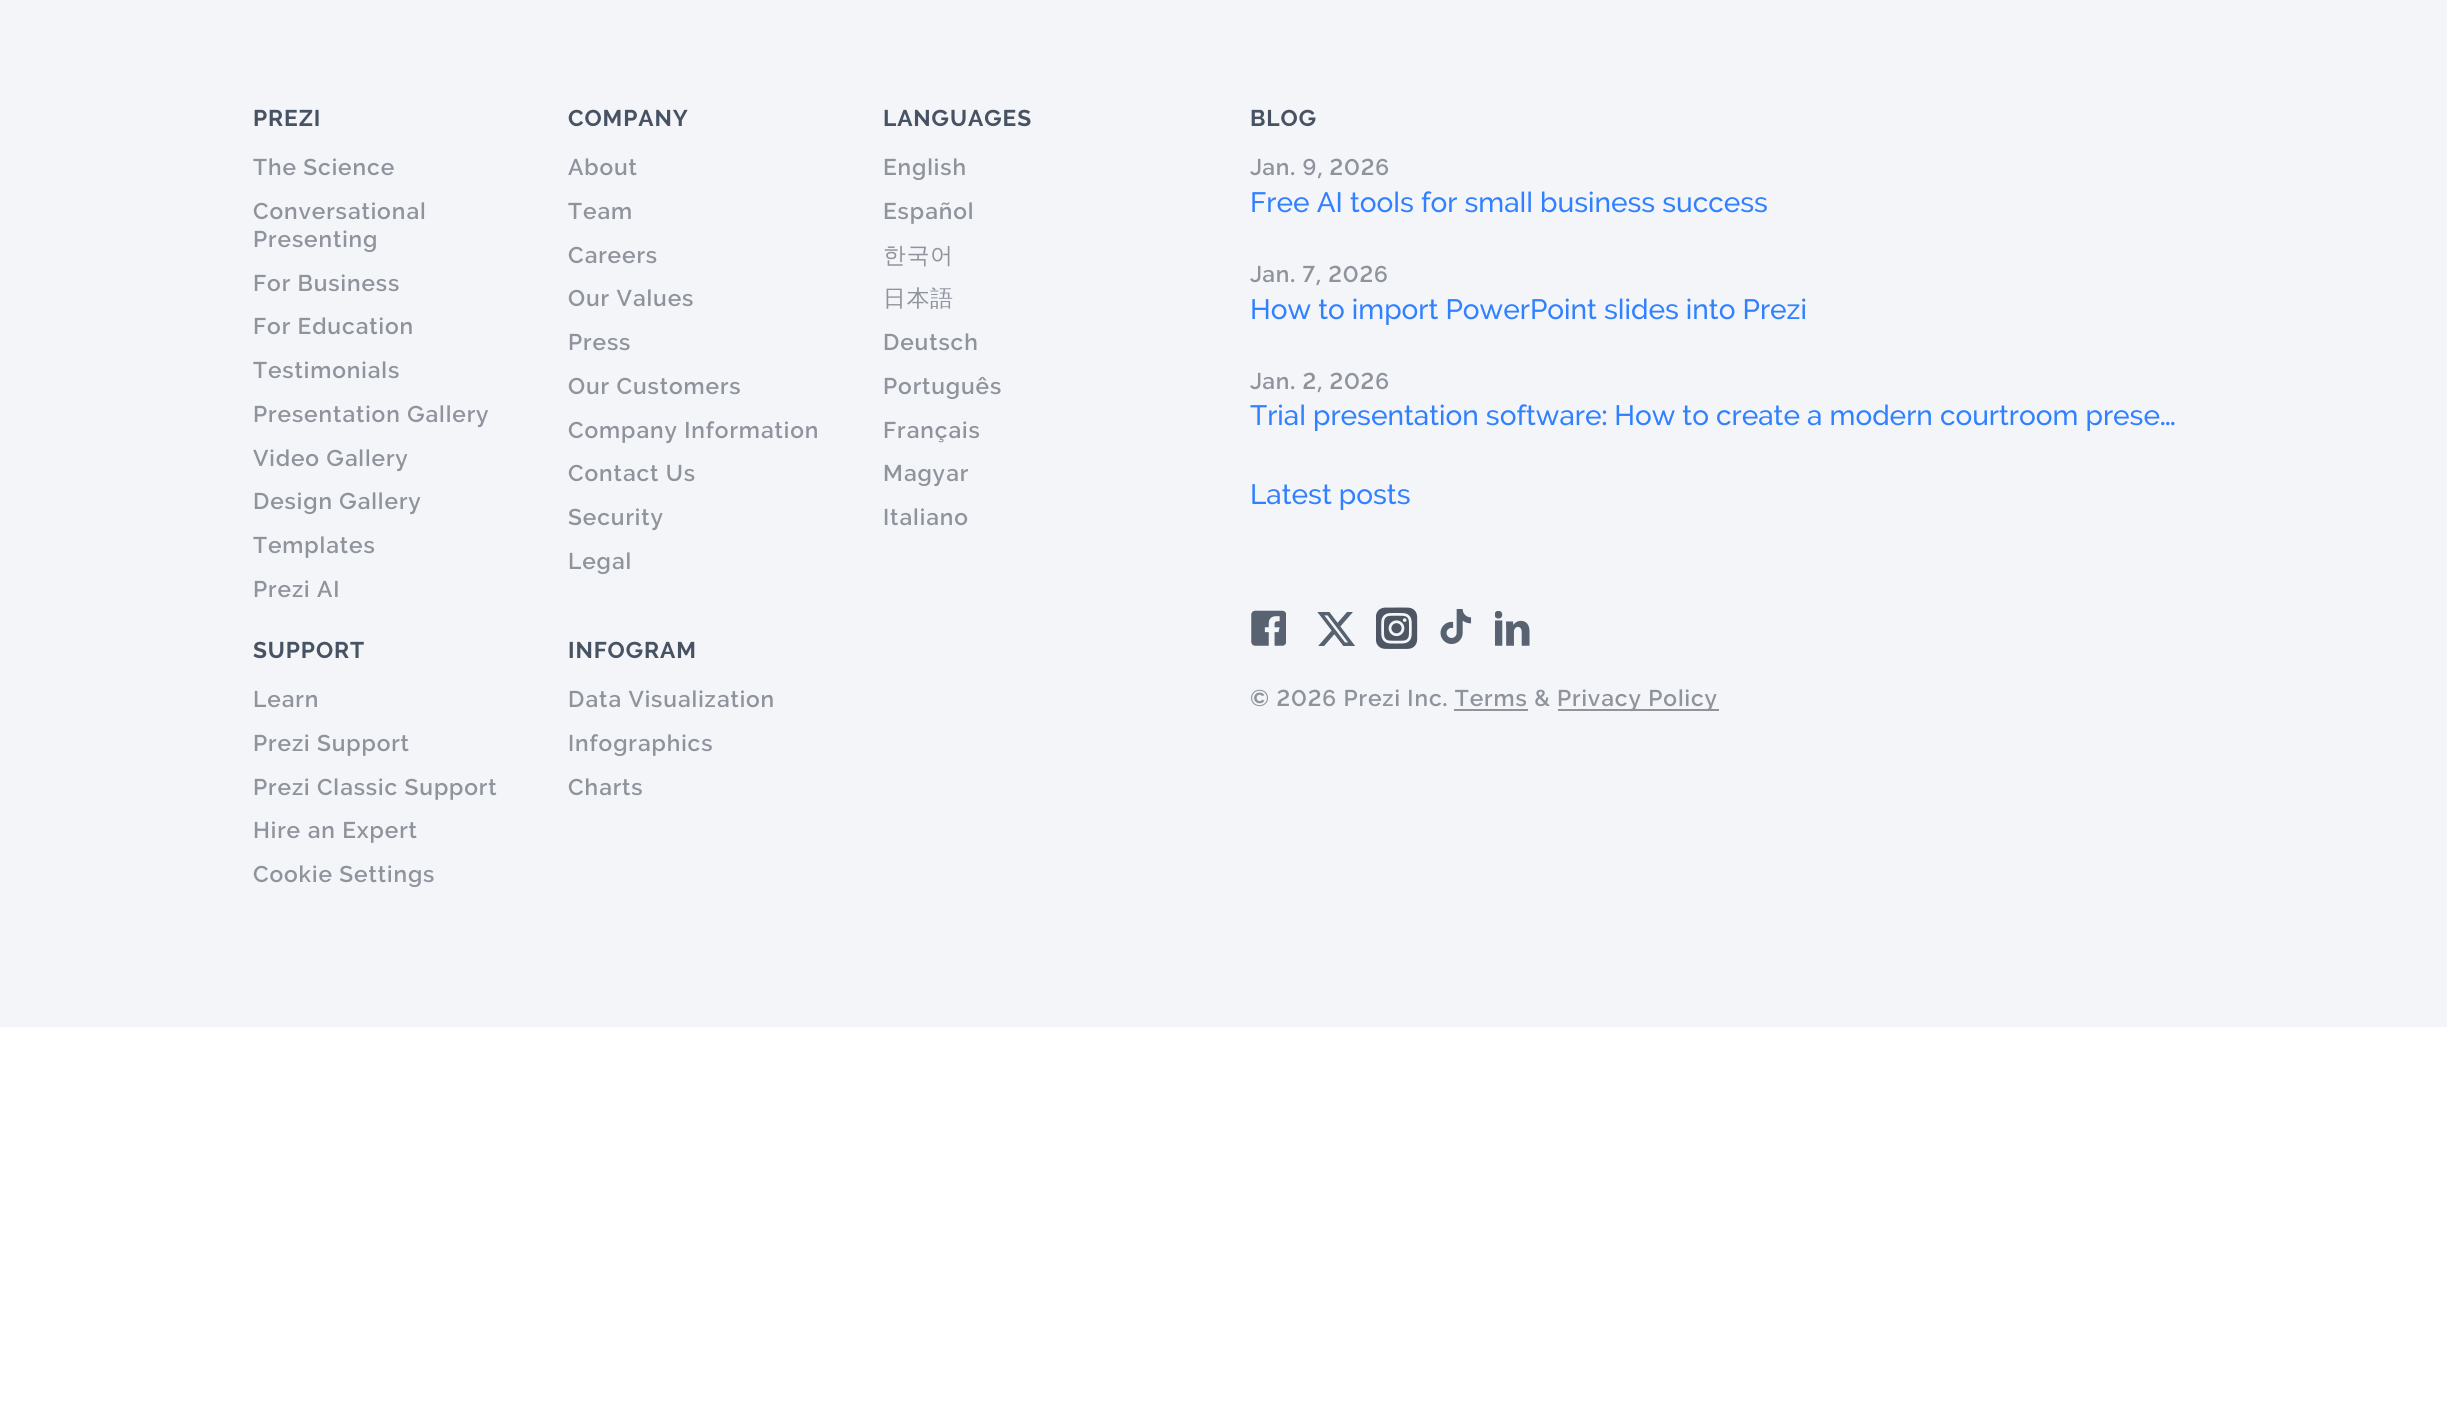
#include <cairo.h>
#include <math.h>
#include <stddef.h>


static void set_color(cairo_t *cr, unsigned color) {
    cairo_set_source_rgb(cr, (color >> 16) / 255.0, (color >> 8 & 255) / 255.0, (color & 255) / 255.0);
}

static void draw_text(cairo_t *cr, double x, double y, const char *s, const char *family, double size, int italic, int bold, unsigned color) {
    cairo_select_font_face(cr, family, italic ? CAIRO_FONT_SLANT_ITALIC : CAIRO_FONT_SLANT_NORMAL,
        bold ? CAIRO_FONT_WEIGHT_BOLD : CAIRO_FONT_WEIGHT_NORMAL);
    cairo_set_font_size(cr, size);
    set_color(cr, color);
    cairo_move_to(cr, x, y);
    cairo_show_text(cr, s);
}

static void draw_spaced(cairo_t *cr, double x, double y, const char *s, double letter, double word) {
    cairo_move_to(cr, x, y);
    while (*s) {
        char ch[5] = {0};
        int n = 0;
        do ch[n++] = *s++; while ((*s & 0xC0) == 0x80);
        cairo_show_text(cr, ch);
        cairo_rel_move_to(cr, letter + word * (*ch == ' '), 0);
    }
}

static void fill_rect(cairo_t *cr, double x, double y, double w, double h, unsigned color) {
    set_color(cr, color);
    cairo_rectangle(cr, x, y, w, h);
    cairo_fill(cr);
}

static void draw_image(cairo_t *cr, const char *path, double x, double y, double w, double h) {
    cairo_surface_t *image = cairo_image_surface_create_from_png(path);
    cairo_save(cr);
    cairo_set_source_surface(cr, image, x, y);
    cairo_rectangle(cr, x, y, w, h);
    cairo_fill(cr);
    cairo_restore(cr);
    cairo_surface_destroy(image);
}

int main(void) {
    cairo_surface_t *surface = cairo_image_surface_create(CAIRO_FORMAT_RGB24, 2447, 1407);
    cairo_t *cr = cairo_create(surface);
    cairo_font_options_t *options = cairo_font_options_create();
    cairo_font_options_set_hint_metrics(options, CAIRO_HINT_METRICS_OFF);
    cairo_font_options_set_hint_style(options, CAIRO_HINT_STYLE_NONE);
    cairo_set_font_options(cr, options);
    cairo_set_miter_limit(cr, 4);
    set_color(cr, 0xFFFFFF);
    cairo_paint(cr);
    fill_rect(cr, 0, 0, 2447, 1027, 0xF3F5F9);
    cairo_select_font_face(cr, "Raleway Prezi", CAIRO_FONT_SLANT_NORMAL, CAIRO_FONT_WEIGHT_BOLD);
    cairo_set_font_size(cr, 22.75);
    set_color(cr, 0x475262);
    draw_spaced(cr, 253, 126, "PREZI", 0.9, 0);
    cairo_select_font_face(cr, "Raleway Prezi SemiBold", CAIRO_FONT_SLANT_NORMAL, CAIRO_FONT_WEIGHT_NORMAL);
    set_color(cr, 0x8E939C);
    draw_spaced(cr, 253, 175, "The Science", 0.9, 0);
    draw_spaced(cr, 253, 219, "Conversational", 0.9, 0);
    draw_spaced(cr, 253, 247, "Presenting", 0.9, 0);
    draw_spaced(cr, 253, 291, "For Business", 0.9, 0);
    draw_spaced(cr, 253, 334, "For Education", 0.9, 0);
    draw_spaced(cr, 253, 378, "Testimonials", 0.9, 0);
    draw_spaced(cr, 253, 422, "Presentation Gallery", 0.9, 0);
    draw_spaced(cr, 253, 466, "Video Gallery", 0.9, 0);
    draw_spaced(cr, 253, 509, "Design Gallery", 0.9, 0);
    draw_spaced(cr, 253, 553, "Templates", 0.9, 0);
    draw_spaced(cr, 253, 597, "Prezi AI", 0.9, 0);
    cairo_select_font_face(cr, "Raleway Prezi", CAIRO_FONT_SLANT_NORMAL, CAIRO_FONT_WEIGHT_BOLD);
    set_color(cr, 0x475262);
    draw_spaced(cr, 568, 126, "COMPANY", 0.9, 0);
    cairo_select_font_face(cr, "Raleway Prezi SemiBold", CAIRO_FONT_SLANT_NORMAL, CAIRO_FONT_WEIGHT_NORMAL);
    set_color(cr, 0x8E939C);
    draw_spaced(cr, 568, 175, "About", 0.9, 0);
    draw_spaced(cr, 568, 219, "Team", 0.9, 0);
    draw_spaced(cr, 568, 263, "Careers", 0.9, 0);
    draw_spaced(cr, 568, 306, "Our Values", 0.9, 0);
    draw_spaced(cr, 568, 350, "Press", 0.9, 0);
    draw_spaced(cr, 568, 394, "Our Customers", 0.9, 0);
    draw_spaced(cr, 568, 438, "Company Information", 0.9, 0);
    draw_spaced(cr, 568, 481, "Contact Us", 0.9, 0);
    draw_spaced(cr, 568, 525, "Security", 0.9, 0);
    draw_spaced(cr, 568, 569, "Legal", 0.9, 0);
    cairo_select_font_face(cr, "Raleway Prezi", CAIRO_FONT_SLANT_NORMAL, CAIRO_FONT_WEIGHT_BOLD);
    set_color(cr, 0x475262);
    draw_spaced(cr, 883, 126, "LANGUAGES", 0.9, 0);
    cairo_select_font_face(cr, "Raleway Prezi SemiBold", CAIRO_FONT_SLANT_NORMAL, CAIRO_FONT_WEIGHT_NORMAL);
    set_color(cr, 0x8E939C);
    draw_spaced(cr, 883, 175, "English", 0.9, 0);
    draw_spaced(cr, 883, 219, "Español", 0.9, 0);
    cairo_select_font_face(cr, "WenQuanYi Zen Hei Medium", CAIRO_FONT_SLANT_NORMAL, CAIRO_FONT_WEIGHT_NORMAL);
    draw_spaced(cr, 883, 263, "한국어", 0.9, 0);
    draw_spaced(cr, 883, 306, "日本語", 0.9, 0);
    cairo_select_font_face(cr, "Raleway Prezi SemiBold", CAIRO_FONT_SLANT_NORMAL, CAIRO_FONT_WEIGHT_NORMAL);
    draw_spaced(cr, 883, 350, "Deutsch", 0.9, 0);
    draw_spaced(cr, 883, 394, "Português", 0.9, 0);
    draw_spaced(cr, 883, 438, "Français", 0.9, 0);
    draw_spaced(cr, 883, 481, "Magyar", 0.9, 0);
    draw_spaced(cr, 883, 525, "Italiano", 0.9, 0);
    cairo_select_font_face(cr, "Raleway Prezi", CAIRO_FONT_SLANT_NORMAL, CAIRO_FONT_WEIGHT_BOLD);
    set_color(cr, 0x475262);
    draw_spaced(cr, 253, 658, "SUPPORT", 0.9, 0);
    cairo_select_font_face(cr, "Raleway Prezi SemiBold", CAIRO_FONT_SLANT_NORMAL, CAIRO_FONT_WEIGHT_NORMAL);
    set_color(cr, 0x8E939C);
    draw_spaced(cr, 253, 707, "Learn", 0.9, 0);
    draw_spaced(cr, 253, 751, "Prezi Support", 0.9, 0);
    draw_spaced(cr, 253, 795, "Prezi Classic Support", 0.9, 0);
    draw_spaced(cr, 253, 838, "Hire an Expert", 0.9, 0);
    draw_spaced(cr, 253, 882, "Cookie Settings", 0.9, 0);
    cairo_select_font_face(cr, "Raleway Prezi", CAIRO_FONT_SLANT_NORMAL, CAIRO_FONT_WEIGHT_BOLD);
    set_color(cr, 0x475262);
    draw_spaced(cr, 568, 658, "INFOGRAM", 0.9, 0);
    cairo_select_font_face(cr, "Raleway Prezi SemiBold", CAIRO_FONT_SLANT_NORMAL, CAIRO_FONT_WEIGHT_NORMAL);
    set_color(cr, 0x8E939C);
    draw_spaced(cr, 568, 707, "Data Visualization", 0.9, 0);
    draw_spaced(cr, 568, 751, "Infographics", 0.9, 0);
    draw_spaced(cr, 568, 795, "Charts", 0.9, 0);
    cairo_select_font_face(cr, "Raleway Prezi", CAIRO_FONT_SLANT_NORMAL, CAIRO_FONT_WEIGHT_BOLD);
    set_color(cr, 0x475262);
    draw_spaced(cr, 1250, 126, "BLOG", 0.9, 0);
    cairo_select_font_face(cr, "Raleway Prezi SemiBold", CAIRO_FONT_SLANT_NORMAL, CAIRO_FONT_WEIGHT_NORMAL);
    set_color(cr, 0x8E939C);
    draw_spaced(cr, 1250, 175, "Jan. 9, 2026", 0.9, 0);
    draw_text(cr, 1250, 212, "Free AI tools for small business success", "Raleway Prezi Medium", 28, 0, 0, 0x3181FF);
    cairo_select_font_face(cr, "Raleway Prezi SemiBold", CAIRO_FONT_SLANT_NORMAL, CAIRO_FONT_WEIGHT_NORMAL);
    cairo_set_font_size(cr, 22.75);
    set_color(cr, 0x8E939C);
    draw_spaced(cr, 1250, 282, "Jan. 7, 2026", 0.9, 0);
    draw_text(cr, 1250, 319, "How to import PowerPoint slides into Prezi", "Raleway Prezi Medium", 28, 0, 0, 0x3181FF);
    cairo_select_font_face(cr, "Raleway Prezi SemiBold", CAIRO_FONT_SLANT_NORMAL, CAIRO_FONT_WEIGHT_NORMAL);
    cairo_set_font_size(cr, 22.75);
    set_color(cr, 0x8E939C);
    draw_spaced(cr, 1250, 389, "Jan. 2, 2026", 0.9, 0);
    draw_text(cr, 1250, 425, "Trial presentation software: How to create a modern courtroom prese…", "Raleway Prezi Medium", 28, 0, 0, 0x3181FF);
    draw_text(cr, 1250, 504, "Latest posts", "Raleway Prezi Medium", 28, 0, 0, 0x3181FF);
    draw_image(cr, "assets/img1.png", 1251, 610, 35, 36);
    draw_image(cr, "assets/img2.png", 1317, 612, 38, 34);
    draw_image(cr, "assets/img3.png", 1376, 607, 42, 42);
    draw_image(cr, "assets/img4.png", 1440, 609, 32, 35);
    draw_image(cr, "assets/img5.png", 1495, 611, 35, 35);
    cairo_select_font_face(cr, "Raleway Prezi SemiBold", CAIRO_FONT_SLANT_NORMAL, CAIRO_FONT_WEIGHT_NORMAL);
    cairo_set_font_size(cr, 22.75);
    set_color(cr, 0x8E939C);
    draw_spaced(cr, 1250, 706, "© 2026 Prezi Inc. Terms &", 0.9, 0);
    fill_rect(cr, 1558, 709, 161, 2, 0x8E939C);
    draw_spaced(cr, 1557, 706, "Privacy Policy", 0.9, 0);
    fill_rect(cr, 1454, 709, 74, 2, 0x8E939C);
    cairo_surface_write_to_png(surface, "output.png");
    cairo_font_options_destroy(options);
    cairo_destroy(cr);
    cairo_surface_destroy(surface);
    return 0;
}
